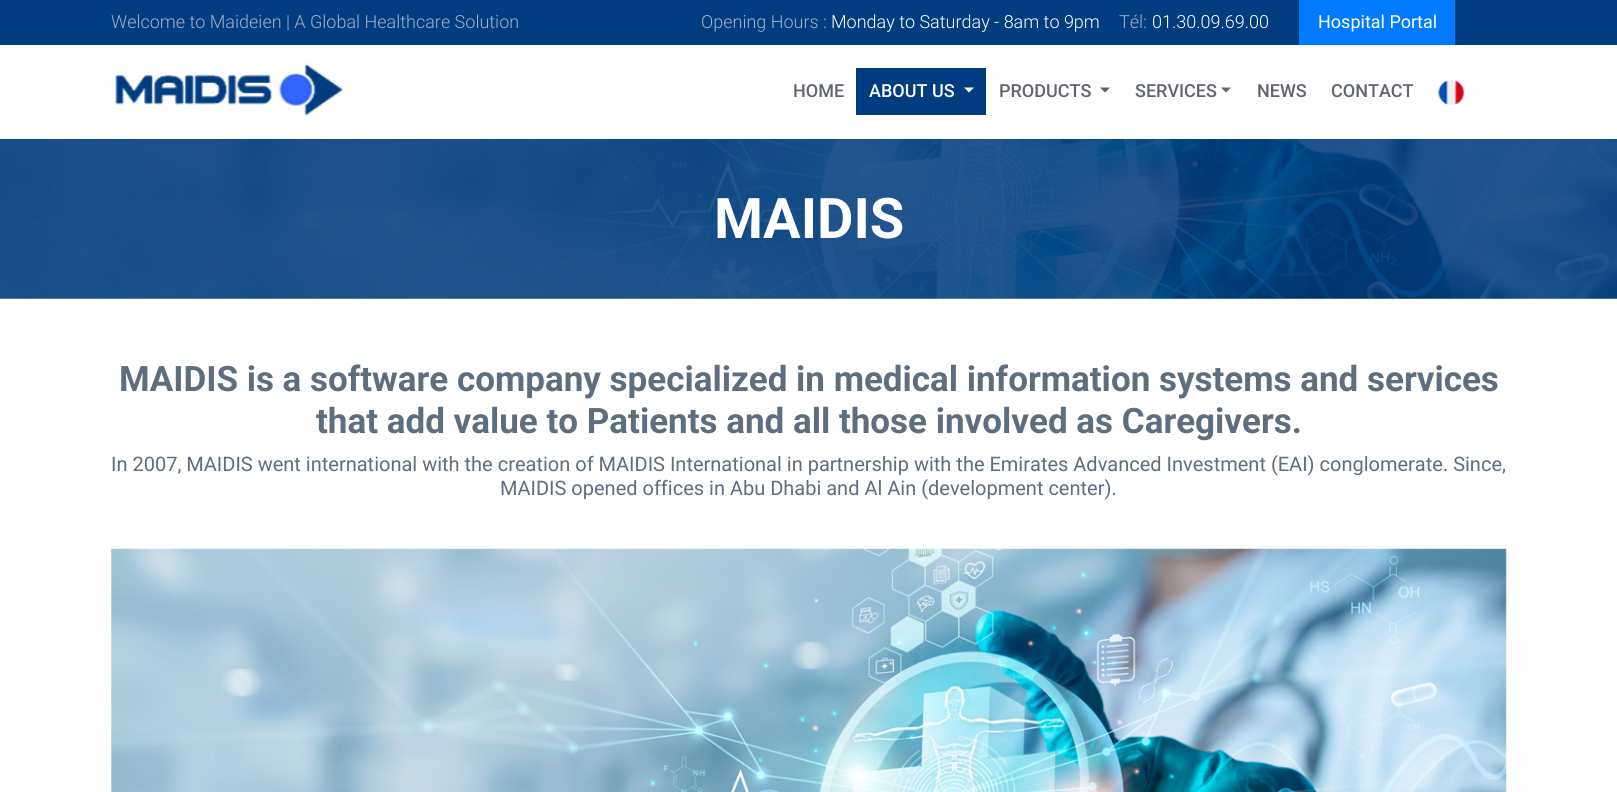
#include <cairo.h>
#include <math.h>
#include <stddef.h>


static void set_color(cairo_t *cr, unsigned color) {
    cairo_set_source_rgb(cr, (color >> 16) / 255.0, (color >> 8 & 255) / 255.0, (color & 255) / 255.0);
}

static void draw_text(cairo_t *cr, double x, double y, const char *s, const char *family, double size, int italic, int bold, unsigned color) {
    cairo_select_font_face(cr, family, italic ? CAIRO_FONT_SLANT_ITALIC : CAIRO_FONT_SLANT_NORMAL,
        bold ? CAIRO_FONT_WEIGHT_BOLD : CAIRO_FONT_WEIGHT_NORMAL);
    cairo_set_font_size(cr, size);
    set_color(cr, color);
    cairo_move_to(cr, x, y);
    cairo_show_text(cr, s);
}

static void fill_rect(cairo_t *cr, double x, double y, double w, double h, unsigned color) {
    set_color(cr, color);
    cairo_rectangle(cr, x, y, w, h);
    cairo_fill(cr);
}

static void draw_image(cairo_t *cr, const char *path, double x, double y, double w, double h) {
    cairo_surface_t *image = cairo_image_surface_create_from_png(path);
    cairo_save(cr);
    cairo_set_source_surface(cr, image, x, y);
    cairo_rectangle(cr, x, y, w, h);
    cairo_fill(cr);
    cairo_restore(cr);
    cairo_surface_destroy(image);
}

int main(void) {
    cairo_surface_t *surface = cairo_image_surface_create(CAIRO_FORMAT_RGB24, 1617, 792);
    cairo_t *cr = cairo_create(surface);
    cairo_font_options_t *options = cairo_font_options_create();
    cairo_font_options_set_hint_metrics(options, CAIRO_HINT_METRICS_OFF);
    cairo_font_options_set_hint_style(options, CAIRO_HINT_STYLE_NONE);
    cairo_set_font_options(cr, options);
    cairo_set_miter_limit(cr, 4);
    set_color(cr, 0xFFFFFF);
    cairo_paint(cr);
    fill_rect(cr, 0, 0, 1617, 45, 0x003D80);
    draw_text(cr, 111, 28, "Welcome to Maideien | A Global Healthcare Solution", "Roboto Light", 18, 0, 0, 0xA3AFC4);
    draw_text(cr, 701, 28, "Opening Hours :", "Roboto Light", 18, 0, 0, 0xA3AFC4);
    draw_text(cr, 831, 28, "Monday to Saturday - 8am to 9pm", "Roboto Light", 18, 0, 0, 0xFFFFFF);
    draw_text(cr, 1119, 28, "Tél:", "Roboto Light", 18, 0, 0, 0xA3AFC4);
    draw_text(cr, 1152, 28, "01.30.09.69.00", "Roboto Light", 18, 0, 0, 0xFFFFFF);
    fill_rect(cr, 1299, 0, 156, 45, 0x007BFF);
    draw_text(cr, 1318, 28, "Hospital Portal", "Roboto", 18, 0, 0, 0xFFFFFF);
    draw_image(cr, "assets/img1.png", 111, 62, 233, 54);
    draw_text(cr, 793, 97, "HOME", "Roboto Medium", 18, 0, 0, 0x60646D);
    fill_rect(cr, 856, 68, 130, 47, 0x003D80);
    draw_text(cr, 869, 97, "ABOUT US", "Roboto Medium", 18, 0, 0, 0xFFFFFF);
    cairo_new_path(cr);
    cairo_move_to(cr, 964, 87.5);
    cairo_line_to(cr, 974, 87.5);
    cairo_line_to(cr, 969, 92.5);
    cairo_close_path(cr);
    cairo_fill(cr);
    draw_text(cr, 999, 97, "PRODUCTS", "Roboto Medium", 18, 0, 0, 0x60646D);
    cairo_new_path(cr);
    cairo_move_to(cr, 1100, 87.5);
    cairo_line_to(cr, 1110, 87.5);
    cairo_line_to(cr, 1105, 92.5);
    cairo_close_path(cr);
    cairo_fill(cr);
    draw_text(cr, 1135, 97, "SERVICES", "Roboto Medium", 18, 0, 0, 0x60646D);
    cairo_new_path(cr);
    cairo_move_to(cr, 1221, 87.5);
    cairo_line_to(cr, 1231, 87.5);
    cairo_line_to(cr, 1226, 92.5);
    cairo_close_path(cr);
    cairo_fill(cr);
    draw_text(cr, 1257, 97, "NEWS", "Roboto Medium", 18, 0, 0, 0x60646D);
    draw_text(cr, 1331, 97, "CONTACT", "Roboto Medium", 18, 0, 0, 0x60646D);
    draw_image(cr, "assets/img2.png", 1438, 80, 26, 25);
    draw_image(cr, "assets/img3.png", 0, 139, 1617, 160);
    draw_text(cr, 714, 238, "MAIDIS", "Roboto", 56, 0, 1, 0xFFFFFF);
    draw_text(cr, 119, 391, "MAIDIS is a software company specialized in medical information systems and services", "Roboto", 35, 0, 1, 0x5E6E7E);
    draw_text(cr, 316, 433, "that add value to Patients and all those involved as Caregivers.", "Roboto", 35, 0, 1, 0x5E6E7E);
    draw_text(cr, 111, 471, "In 2007, MAIDIS went international with the creation of MAIDIS International in partnership with the Emirates Advanced Investment (EAI) conglomerate. Since,", "Roboto", 20, 0, 0, 0x5E6E7E);
    draw_text(cr, 500, 495, "MAIDIS opened offices in Abu Dhabi and Al Ain (development center).", "Roboto", 20, 0, 0, 0x5E6E7E);
    draw_image(cr, "assets/img4.png", 111, 548, 1396, 244);
    cairo_surface_write_to_png(surface, "output.png");
    cairo_font_options_destroy(options);
    cairo_destroy(cr);
    cairo_surface_destroy(surface);
    return 0;
}
